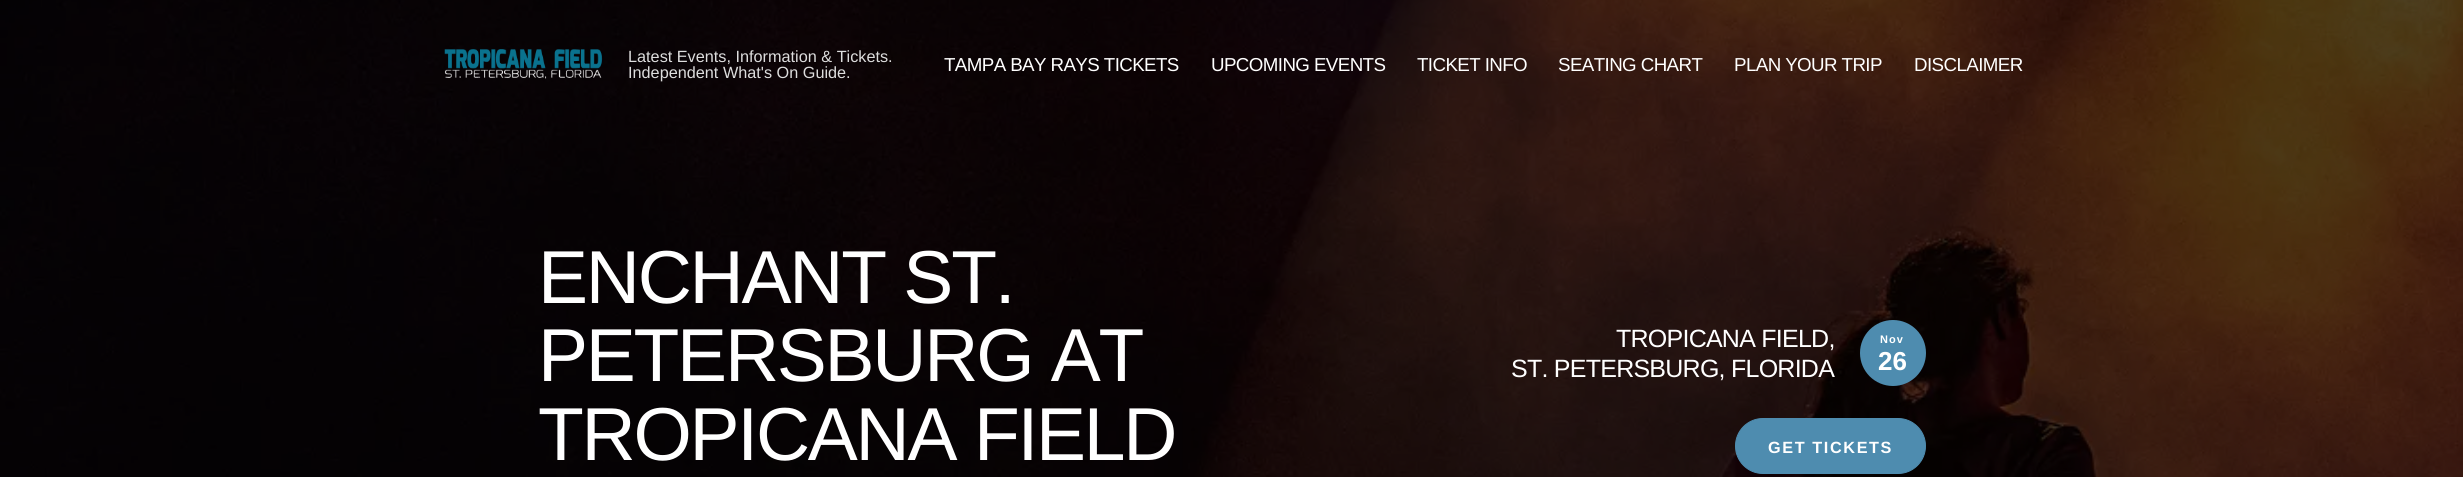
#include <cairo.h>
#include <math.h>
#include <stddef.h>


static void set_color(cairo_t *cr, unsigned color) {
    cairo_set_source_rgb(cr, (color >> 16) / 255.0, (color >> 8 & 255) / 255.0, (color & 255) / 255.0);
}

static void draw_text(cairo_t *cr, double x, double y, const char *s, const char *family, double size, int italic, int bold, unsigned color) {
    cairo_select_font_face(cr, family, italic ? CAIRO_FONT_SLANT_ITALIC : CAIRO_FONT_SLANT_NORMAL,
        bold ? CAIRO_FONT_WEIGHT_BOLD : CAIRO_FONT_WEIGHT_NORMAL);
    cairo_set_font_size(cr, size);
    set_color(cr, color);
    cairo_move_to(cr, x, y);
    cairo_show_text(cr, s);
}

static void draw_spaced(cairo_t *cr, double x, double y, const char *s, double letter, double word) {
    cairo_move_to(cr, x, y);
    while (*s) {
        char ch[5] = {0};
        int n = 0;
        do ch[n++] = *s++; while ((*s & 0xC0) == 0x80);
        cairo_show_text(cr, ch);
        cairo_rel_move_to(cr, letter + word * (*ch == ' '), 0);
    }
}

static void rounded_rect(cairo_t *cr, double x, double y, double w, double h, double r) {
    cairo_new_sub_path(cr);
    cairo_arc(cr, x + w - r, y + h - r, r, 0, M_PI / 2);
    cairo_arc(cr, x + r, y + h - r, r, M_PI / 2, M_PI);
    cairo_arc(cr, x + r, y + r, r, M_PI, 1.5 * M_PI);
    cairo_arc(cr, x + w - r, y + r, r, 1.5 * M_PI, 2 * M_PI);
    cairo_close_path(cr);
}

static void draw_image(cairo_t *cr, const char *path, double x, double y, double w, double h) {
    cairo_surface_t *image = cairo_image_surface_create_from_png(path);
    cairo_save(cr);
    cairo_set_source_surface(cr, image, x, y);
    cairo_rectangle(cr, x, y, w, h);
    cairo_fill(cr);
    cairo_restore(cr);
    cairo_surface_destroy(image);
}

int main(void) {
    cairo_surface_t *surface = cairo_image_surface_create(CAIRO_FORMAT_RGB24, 2463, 477);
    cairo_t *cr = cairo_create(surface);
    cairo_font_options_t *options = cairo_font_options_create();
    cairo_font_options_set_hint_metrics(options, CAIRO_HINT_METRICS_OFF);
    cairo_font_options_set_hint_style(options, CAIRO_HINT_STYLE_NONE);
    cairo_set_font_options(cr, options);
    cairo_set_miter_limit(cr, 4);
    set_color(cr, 0xFFFFFF);
    cairo_paint(cr);
    draw_image(cr, "assets/img2.png", 0, 0, 2463, 477);
    draw_image(cr, "assets/img1.png", 444, 49, 159, 30);
    draw_text(cr, 628, 62, "Latest Events, Information & Tickets.", "Liberation Sans", 16.25, 0, 0, 0xDDDDDD);
    draw_text(cr, 628, 78, "Independent What's On Guide.", "Liberation Sans", 16.25, 0, 0, 0xDDDDDD);
    cairo_set_font_size(cr, 18.75);
    set_color(cr, 0xFFFFFF);
    draw_spaced(cr, 944, 71, "TAMPA BAY RAYS TICKETS", -0.6, 0);
    draw_spaced(cr, 1211, 71, "UPCOMING EVENTS", -0.6, 0);
    draw_spaced(cr, 1417, 71, "TICKET INFO", -0.6, 0);
    draw_spaced(cr, 1558, 71, "SEATING CHART", -0.6, 0);
    draw_spaced(cr, 1734, 71, "PLAN YOUR TRIP", -0.6, 0);
    draw_spaced(cr, 1914, 71, "DISCLAIMER", -0.6, 0);
    cairo_set_font_size(cr, 75);
    draw_spaced(cr, 538, 303, "ENCHANT ST.", -2.25, 0);
    draw_spaced(cr, 538, 381, "PETERSBURG AT", -2.25, 0);
    draw_spaced(cr, 538, 460, "TROPICANA FIELD", -2.25, 0);
    cairo_set_font_size(cr, 25);
    draw_spaced(cr, 1616, 347, "TROPICANA FIELD,", -0.75, 0);
    draw_spaced(cr, 1511, 377, "ST. PETERSBURG, FLORIDA", -0.75, 0);
    set_color(cr, 0x4E8CAF);
    cairo_new_path(cr);
    cairo_arc(cr, 1893, 353, 33, 0, 2 * M_PI);
    cairo_fill(cr);
    cairo_select_font_face(cr, "Liberation Sans", CAIRO_FONT_SLANT_NORMAL, CAIRO_FONT_WEIGHT_BOLD);
    cairo_set_font_size(cr, 11);
    set_color(cr, 0xFFFFFF);
    draw_spaced(cr, 1880, 343, "Nov", 1, 0);
    draw_text(cr, 1878, 370, "26", "Liberation Sans", 26, 0, 1, 0xFFFFFF);
    set_color(cr, 0x4E8CAF);
    rounded_rect(cr, 1735.5, 418.5, 190, 55, 27.5);
    cairo_fill_preserve(cr);
    cairo_set_line_width(cr, 1);
    cairo_stroke(cr);
    cairo_set_font_size(cr, 16.25);
    set_color(cr, 0xFFFFFF);
    draw_spaced(cr, 1768, 453, "GET TICKETS", 1.6, 0);
    cairo_surface_write_to_png(surface, "output.png");
    cairo_font_options_destroy(options);
    cairo_destroy(cr);
    cairo_surface_destroy(surface);
    return 0;
}
